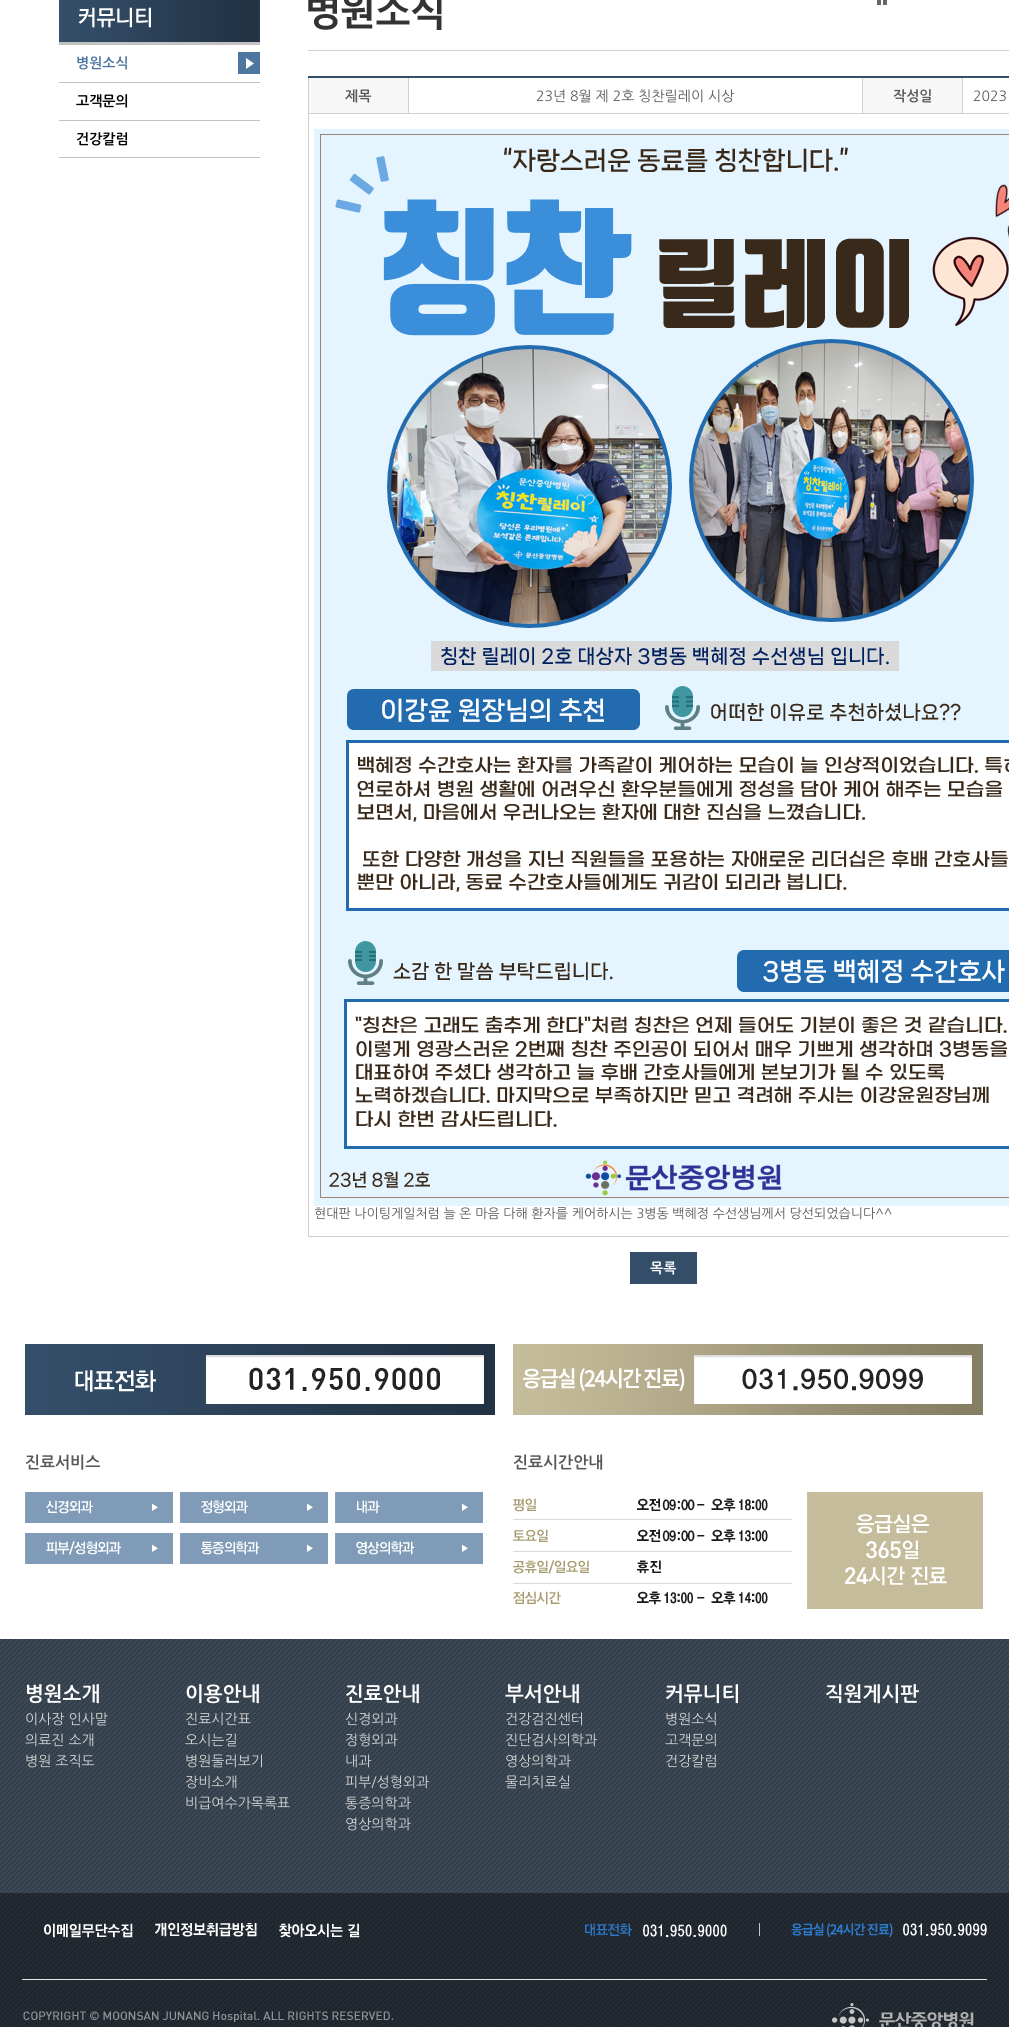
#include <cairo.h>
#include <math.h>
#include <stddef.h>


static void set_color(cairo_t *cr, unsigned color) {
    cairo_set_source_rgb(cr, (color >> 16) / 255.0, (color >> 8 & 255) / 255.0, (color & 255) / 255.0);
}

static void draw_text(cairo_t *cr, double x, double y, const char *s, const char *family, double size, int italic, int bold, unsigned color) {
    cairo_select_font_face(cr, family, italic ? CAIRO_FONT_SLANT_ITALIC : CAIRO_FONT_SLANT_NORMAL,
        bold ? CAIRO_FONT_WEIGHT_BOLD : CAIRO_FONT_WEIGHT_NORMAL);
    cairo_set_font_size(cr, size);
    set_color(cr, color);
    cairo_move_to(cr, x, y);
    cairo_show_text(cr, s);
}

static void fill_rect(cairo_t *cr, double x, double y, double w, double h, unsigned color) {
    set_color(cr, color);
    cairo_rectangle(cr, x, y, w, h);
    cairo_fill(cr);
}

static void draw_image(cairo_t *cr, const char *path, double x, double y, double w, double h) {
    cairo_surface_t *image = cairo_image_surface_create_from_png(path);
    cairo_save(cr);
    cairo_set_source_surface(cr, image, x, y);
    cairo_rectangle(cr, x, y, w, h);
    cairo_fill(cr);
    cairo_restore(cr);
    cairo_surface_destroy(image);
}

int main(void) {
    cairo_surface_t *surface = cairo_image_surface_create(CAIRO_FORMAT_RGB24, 1009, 2027);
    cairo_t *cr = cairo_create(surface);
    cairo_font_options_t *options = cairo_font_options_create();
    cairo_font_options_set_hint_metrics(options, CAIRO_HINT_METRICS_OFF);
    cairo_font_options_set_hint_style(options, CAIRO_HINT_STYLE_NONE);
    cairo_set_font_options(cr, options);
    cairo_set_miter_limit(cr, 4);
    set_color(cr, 0xFFFFFF);
    cairo_paint(cr);
    draw_image(cr, "assets/img1.png", 59, 0, 201, 45);
    draw_image(cr, "assets/img2.png", 238, 52, 22, 22);
    fill_rect(cr, 59, 82, 201, 1, 0xC2C2C2);
    draw_text(cr, 76, 68, "병원소식", "NanumGothic", 14, 0, 1, 0x4F769F);
    fill_rect(cr, 59, 120, 201, 1, 0xC2C2C2);
    draw_text(cr, 76, 106, "고객문의", "NanumGothic", 14, 0, 1, 0x000000);
    fill_rect(cr, 59, 157, 201, 1, 0xC2C2C2);
    draw_text(cr, 76, 144, "건강칼럼", "NanumGothic", 14, 0, 1, 0x000000);
    fill_rect(cr, 308, 50, 701, 1, 0xD0D0D0);
    draw_image(cr, "assets/img3.png", 308, 0, 134, 30);
    draw_image(cr, "assets/img4.png", 877, 0, 10, 5);
    fill_rect(cr, 308, 113, 701, 1, 0xD0D0D0);
    fill_rect(cr, 408, 77, 1, 37, 0xD0D0D0);
    fill_rect(cr, 862, 77, 1, 37, 0xD0D0D0);
    fill_rect(cr, 962, 77, 1, 37, 0xD0D0D0);
    fill_rect(cr, 308, 1236, 701, 1, 0xD0D0D0);
    fill_rect(cr, 308, 77, 1, 1160, 0xD0D0D0);
    fill_rect(cr, 308, 76, 701, 2, 0x344E69);
    fill_rect(cr, 309, 78, 99, 35, 0xF7F7F7);
    draw_text(cr, 345, 101, "제목", "NanumGothic", 14, 0, 1, 0x585858);
    draw_text(cr, 536, 101, "23년 8월 제 2호 칭찬릴레이 시상", "NanumGothic", 14, 0, 0, 0x585858);
    fill_rect(cr, 863, 78, 99, 35, 0xF7F7F7);
    draw_text(cr, 893, 101, "작성일", "NanumGothic", 14, 0, 1, 0x585858);
    draw_text(cr, 973, 101, "2023", "NanumGothic", 14, 0, 0, 0x585858);
    draw_image(cr, "assets/img5.png", 314, 129, 695, 1077);
    draw_text(cr, 314, 1218, "현대판 나이팅게일처럼 늘 온 마음 다해 환자를 케어하시는 3병동 백혜정 수선생님께서 당선되었습니다^^", "NanumGothic", 13, 0, 0, 0x585858);
    fill_rect(cr, 630, 1252, 67, 32, 0x344E69);
    draw_text(cr, 650, 1273, "목록", "NanumGothic", 14, 0, 1, 0xFFFFFF);
    draw_image(cr, "assets/img6.png", 25, 1344, 470, 71);
    draw_text(cr, 25, 1468, "진료서비스", "NanumGothic", 16, 0, 1, 0x585858);
    draw_image(cr, "assets/img7.png", 25, 1492, 148, 31);
    draw_image(cr, "assets/img8.png", 180, 1492, 148, 31);
    draw_image(cr, "assets/img9.png", 335, 1492, 148, 31);
    draw_image(cr, "assets/img10.png", 25, 1533, 148, 31);
    draw_image(cr, "assets/img11.png", 180, 1533, 148, 31);
    draw_image(cr, "assets/img12.png", 335, 1533, 148, 31);
    draw_image(cr, "assets/img13.png", 513, 1344, 470, 71);
    draw_text(cr, 513, 1468, "진료시간안내", "NanumGothic", 16, 0, 1, 0x585858);
    draw_image(cr, "assets/img14.png", 513, 1492, 470, 117);
    draw_image(cr, "assets/img15.png", 0, 1639, 1009, 254);
    draw_text(cr, 25, 1701, "병원소개", "NanumGothic", 20, 0, 1, 0xFFFFFF);
    draw_text(cr, 25, 1724, "이사장 인사말", "NanumGothic", 14, 0, 0, 0xD6D6D6);
    draw_text(cr, 25, 1745, "의료진 소개", "NanumGothic", 14, 0, 0, 0xD6D6D6);
    draw_text(cr, 25, 1766, "병원 조직도", "NanumGothic", 14, 0, 0, 0xD6D6D6);
    draw_text(cr, 185, 1701, "이용안내", "NanumGothic", 20, 0, 1, 0xFFFFFF);
    draw_text(cr, 185, 1724, "진료시간표", "NanumGothic", 14, 0, 0, 0xD6D6D6);
    draw_text(cr, 185, 1745, "오시는길", "NanumGothic", 14, 0, 0, 0xD6D6D6);
    draw_text(cr, 185, 1766, "병원둘러보기", "NanumGothic", 14, 0, 0, 0xD6D6D6);
    draw_text(cr, 185, 1787, "장비소개", "NanumGothic", 14, 0, 0, 0xD6D6D6);
    draw_text(cr, 185, 1808, "비급여수가목록표", "NanumGothic", 14, 0, 0, 0xD6D6D6);
    draw_text(cr, 345, 1701, "진료안내", "NanumGothic", 20, 0, 1, 0xFFFFFF);
    draw_text(cr, 345, 1724, "신경외과", "NanumGothic", 14, 0, 0, 0xD6D6D6);
    draw_text(cr, 345, 1745, "정형외과", "NanumGothic", 14, 0, 0, 0xD6D6D6);
    draw_text(cr, 345, 1766, "내과", "NanumGothic", 14, 0, 0, 0xD6D6D6);
    draw_text(cr, 345, 1787, "피부/성형외과", "NanumGothic", 14, 0, 0, 0xD6D6D6);
    draw_text(cr, 345, 1808, "통증의학과", "NanumGothic", 14, 0, 0, 0xD6D6D6);
    draw_text(cr, 345, 1829, "영상의학과", "NanumGothic", 14, 0, 0, 0xD6D6D6);
    draw_text(cr, 505, 1701, "부서안내", "NanumGothic", 20, 0, 1, 0xFFFFFF);
    draw_text(cr, 505, 1724, "건강검진센터", "NanumGothic", 14, 0, 0, 0xD6D6D6);
    draw_text(cr, 505, 1745, "진단검사의학과", "NanumGothic", 14, 0, 0, 0xD6D6D6);
    draw_text(cr, 505, 1766, "영상의학과", "NanumGothic", 14, 0, 0, 0xD6D6D6);
    draw_text(cr, 505, 1787, "물리치료실", "NanumGothic", 14, 0, 0, 0xD6D6D6);
    draw_text(cr, 665, 1701, "커뮤니티", "NanumGothic", 20, 0, 1, 0xFFFFFF);
    draw_text(cr, 665, 1724, "병원소식", "NanumGothic", 14, 0, 0, 0xD6D6D6);
    draw_text(cr, 665, 1745, "고객문의", "NanumGothic", 14, 0, 0, 0xD6D6D6);
    draw_text(cr, 665, 1766, "건강칼럼", "NanumGothic", 14, 0, 0, 0xD6D6D6);
    draw_text(cr, 825, 1701, "직원게시판", "NanumGothic", 20, 0, 1, 0xFFFFFF);
    draw_image(cr, "assets/img16.png", 0, 1893, 1009, 134);
    fill_rect(cr, 22, 1979, 965, 1, 0xE5E5E5);
    draw_image(cr, "assets/img17.png", 44, 1923, 89, 15);
    draw_image(cr, "assets/img18.png", 155, 1923, 102, 14);
    draw_image(cr, "assets/img19.png", 279, 1923, 81, 15);
    draw_image(cr, "assets/img20.png", 585, 1923, 142, 14);
    fill_rect(cr, 759, 1923, 1, 13, 0xC5C5C5);
    draw_image(cr, "assets/img21.png", 791, 1923, 196, 14);
    draw_image(cr, "assets/img22.png", 23, 2011, 370, 11);
    draw_image(cr, "assets/img23.png", 832, 2003, 142, 24);
    cairo_surface_write_to_png(surface, "output.png");
    cairo_font_options_destroy(options);
    cairo_destroy(cr);
    cairo_surface_destroy(surface);
    return 0;
}
